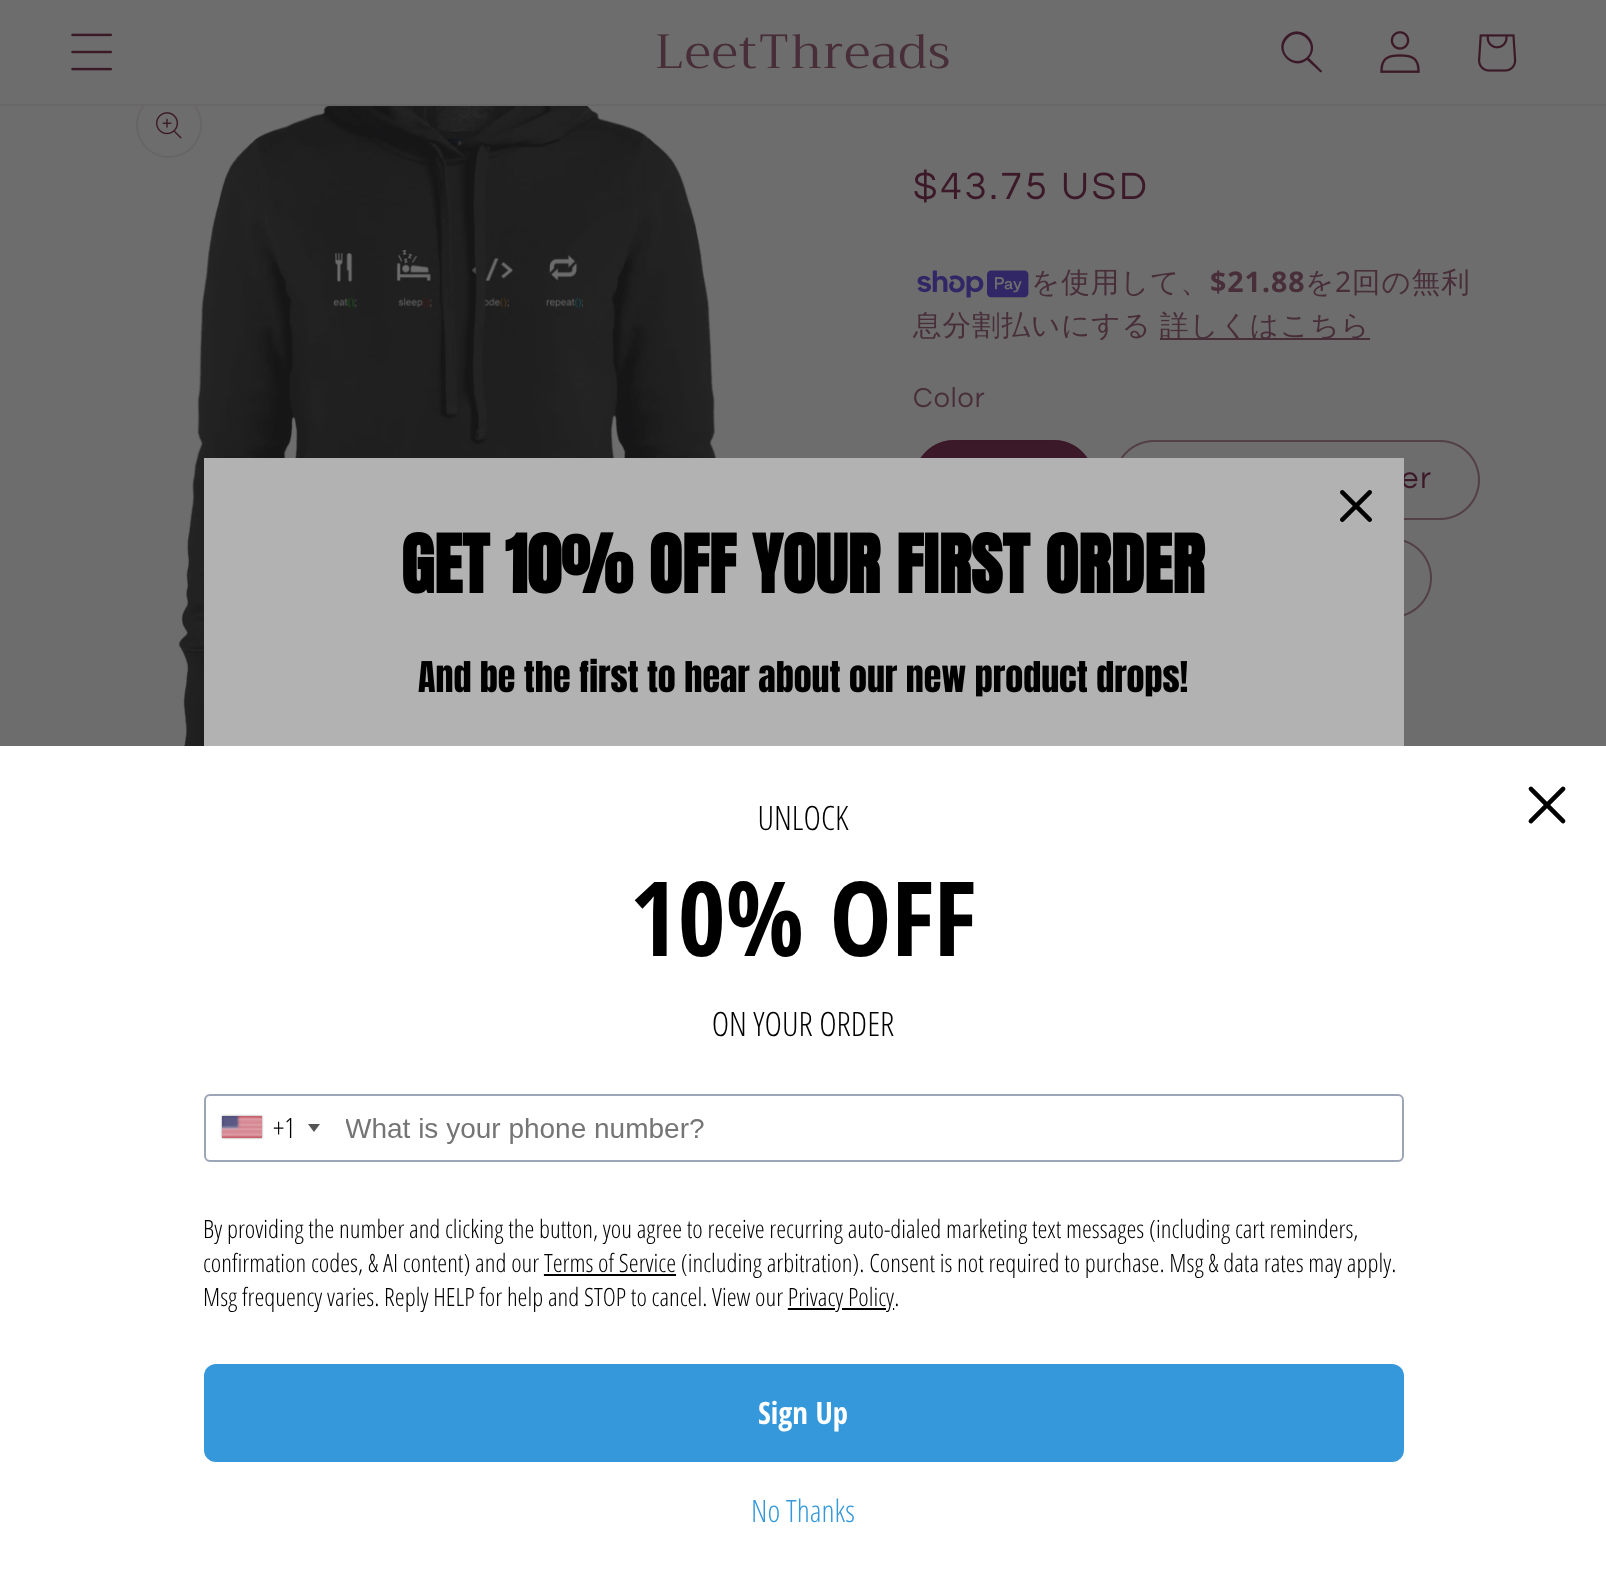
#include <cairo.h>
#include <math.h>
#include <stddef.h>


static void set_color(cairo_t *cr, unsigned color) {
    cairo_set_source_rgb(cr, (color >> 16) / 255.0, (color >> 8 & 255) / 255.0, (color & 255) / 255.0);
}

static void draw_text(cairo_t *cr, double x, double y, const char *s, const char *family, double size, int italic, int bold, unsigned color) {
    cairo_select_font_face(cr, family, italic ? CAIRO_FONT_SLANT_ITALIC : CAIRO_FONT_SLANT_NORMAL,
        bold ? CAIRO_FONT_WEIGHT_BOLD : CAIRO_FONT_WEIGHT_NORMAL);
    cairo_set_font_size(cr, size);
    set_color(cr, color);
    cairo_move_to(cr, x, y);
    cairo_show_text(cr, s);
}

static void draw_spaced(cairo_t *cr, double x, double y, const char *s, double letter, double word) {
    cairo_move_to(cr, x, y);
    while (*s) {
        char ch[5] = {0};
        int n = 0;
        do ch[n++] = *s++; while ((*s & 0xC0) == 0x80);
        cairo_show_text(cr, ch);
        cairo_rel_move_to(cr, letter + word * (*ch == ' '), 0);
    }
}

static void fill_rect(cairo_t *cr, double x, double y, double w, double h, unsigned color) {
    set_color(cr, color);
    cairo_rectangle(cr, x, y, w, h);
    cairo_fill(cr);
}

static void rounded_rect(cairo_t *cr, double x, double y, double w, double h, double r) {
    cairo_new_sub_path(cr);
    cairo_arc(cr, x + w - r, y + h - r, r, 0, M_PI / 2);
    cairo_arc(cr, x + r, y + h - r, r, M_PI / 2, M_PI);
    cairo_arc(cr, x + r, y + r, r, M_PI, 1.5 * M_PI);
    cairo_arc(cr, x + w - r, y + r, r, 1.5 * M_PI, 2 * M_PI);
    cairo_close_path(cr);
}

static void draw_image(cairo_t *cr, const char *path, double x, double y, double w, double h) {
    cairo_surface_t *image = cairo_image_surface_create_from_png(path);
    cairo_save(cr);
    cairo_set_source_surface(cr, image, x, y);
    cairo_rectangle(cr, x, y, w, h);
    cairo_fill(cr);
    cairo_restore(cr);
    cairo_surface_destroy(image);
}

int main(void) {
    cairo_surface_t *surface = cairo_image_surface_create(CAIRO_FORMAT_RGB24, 1606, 1580);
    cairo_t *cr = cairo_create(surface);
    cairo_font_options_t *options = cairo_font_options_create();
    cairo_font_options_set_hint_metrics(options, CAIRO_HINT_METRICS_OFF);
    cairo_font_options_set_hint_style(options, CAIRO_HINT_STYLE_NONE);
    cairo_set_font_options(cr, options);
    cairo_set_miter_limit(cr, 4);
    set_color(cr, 0x9C9C9C);
    cairo_paint(cr);
    draw_image(cr, "assets/img6.png", 178, 106, 539, 640);
    cairo_arc(cr, 169, 125, 32, 0, 2 * M_PI);
    set_color(cr, 0x959092);
    cairo_stroke(cr);
    fill_rect(cr, 144, 92, 50, 12, 0x9C9C9C);
    fill_rect(cr, 0, 104, 1606, 2, 0x969294);
    draw_image(cr, "assets/img2.png", 71, 33, 41, 38);
    cairo_select_font_face(cr, "Trirong", CAIRO_FONT_SLANT_NORMAL, CAIRO_FONT_WEIGHT_NORMAL);
    cairo_set_font_size(cr, 48);
    set_color(cr, 0x674252);
    draw_spaced(cr, 655, 68, "LeetThreads", 1.25, 0);
    set_color(cr, 0x552439);
    cairo_set_fill_rule(cr, CAIRO_FILL_RULE_EVEN_ODD);
    cairo_new_path(cr);
    cairo_move_to(cr, 1307, 57);
    cairo_curve_to(cr, 1294, 69, 1275, 51, 1288, 38);
    cairo_curve_to(cr, 1300, 26, 1319, 45, 1307, 57);
    cairo_move_to(cr, 1307, 60);
    cairo_curve_to(cr, 1292, 72, 1272, 50, 1286, 36);
    cairo_curve_to(cr, 1301, 22, 1322, 43, 1309, 58);
    cairo_line_to(cr, 1322, 71);
    cairo_curve_to(cr, 1322, 72, 1321, 73, 1320, 72);
    cairo_close_path(cr);
    cairo_fill(cr);
    draw_image(cr, "assets/img3.png", 1380, 31, 40, 42);
    draw_image(cr, "assets/img4.png", 1478, 34, 39, 38);
    draw_image(cr, "assets/img5.png", 156, 112, 26, 27);
    cairo_select_font_face(cr, "Questrial", CAIRO_FONT_SLANT_NORMAL, CAIRO_FONT_WEIGHT_NORMAL);
    cairo_set_font_size(cr, 39.5);
    draw_spaced(cr, 913, 199, "$43.75 USD", 2.9, 0);
    draw_image(cr, "assets/img7.png", 917, 270, 112, 28);
    cairo_select_font_face(cr, "WenQuanYi Zen Hei Medium", CAIRO_FONT_SLANT_NORMAL, CAIRO_FONT_WEIGHT_NORMAL);
    cairo_set_font_size(cr, 28.5);
    set_color(cr, 0x674252);
    draw_spaced(cr, 1031, 292, "を使用して、", 1, 0);
    cairo_select_font_face(cr, "Noto Sans", CAIRO_FONT_SLANT_NORMAL, CAIRO_FONT_WEIGHT_BOLD);
    draw_spaced(cr, 1210, 292, "$21.88", 1, 0);
    cairo_select_font_face(cr, "WenQuanYi Zen Hei Medium", CAIRO_FONT_SLANT_NORMAL, CAIRO_FONT_WEIGHT_NORMAL);
    draw_spaced(cr, 1305, 292, "を", 1, 0);
    cairo_select_font_face(cr, "Noto Sans", CAIRO_FONT_SLANT_NORMAL, CAIRO_FONT_WEIGHT_NORMAL);
    draw_spaced(cr, 1335, 292, "2", 1, 0);
    cairo_select_font_face(cr, "WenQuanYi Zen Hei Medium", CAIRO_FONT_SLANT_NORMAL, CAIRO_FONT_WEIGHT_NORMAL);
    draw_spaced(cr, 1352, 292, "回の無利", 1, 0);
    draw_spaced(cr, 913, 335, "息分割払いにする", 1, 0);
    fill_rect(cr, 1160, 338, 210, 2, 0x674252);
    draw_spaced(cr, 1160, 335, "詳しくはこちら", 1, 0);
    cairo_select_font_face(cr, "Questrial", CAIRO_FONT_SLANT_NORMAL, CAIRO_FONT_WEIGHT_NORMAL);
    draw_spaced(cr, 913, 407, "Color", 1, 0);
    set_color(cr, 0x552439);
    rounded_rect(cr, 914, 440, 180, 80, 40);
    cairo_fill(cr);
    rounded_rect(cr, 915, 441, 178, 78, 39);
    cairo_set_source_rgba(cr, 0.333, 0.141, 0.224, 0.55);
    cairo_stroke(cr);
    rounded_rect(cr, 1115, 441, 364, 78, 39);
    set_color(cr, 0x755A65);
    cairo_stroke(cr);
    cairo_set_font_size(cr, 31);
    set_color(cr, 0x552439);
    draw_spaced(cr, 1401, 488, "er", 2, 0);
    rounded_rect(cr, 1181, 539, 250, 78, 39);
    set_color(cr, 0x755A65);
    cairo_stroke(cr);
    fill_rect(cr, 204, 458, 1200, 288, 0xFFFFFF);
    draw_image(cr, "assets/img8.png", 1340, 490, 32, 32);
    draw_text(cr, 401, 593, "GET 10% OFF YOUR FIRST ORDER", "Anton", 68, 0, 1, 0x000000);
    draw_text(cr, 418, 692, "And be the first to hear about our new product drops!", "Anton", 36, 0, 0, 0x000000);
    draw_image(cr, "assets/img1.png", 0, 0, 1606, 1580);
    cairo_surface_write_to_png(surface, "output.png");
    cairo_font_options_destroy(options);
    cairo_destroy(cr);
    cairo_surface_destroy(surface);
    return 0;
}
